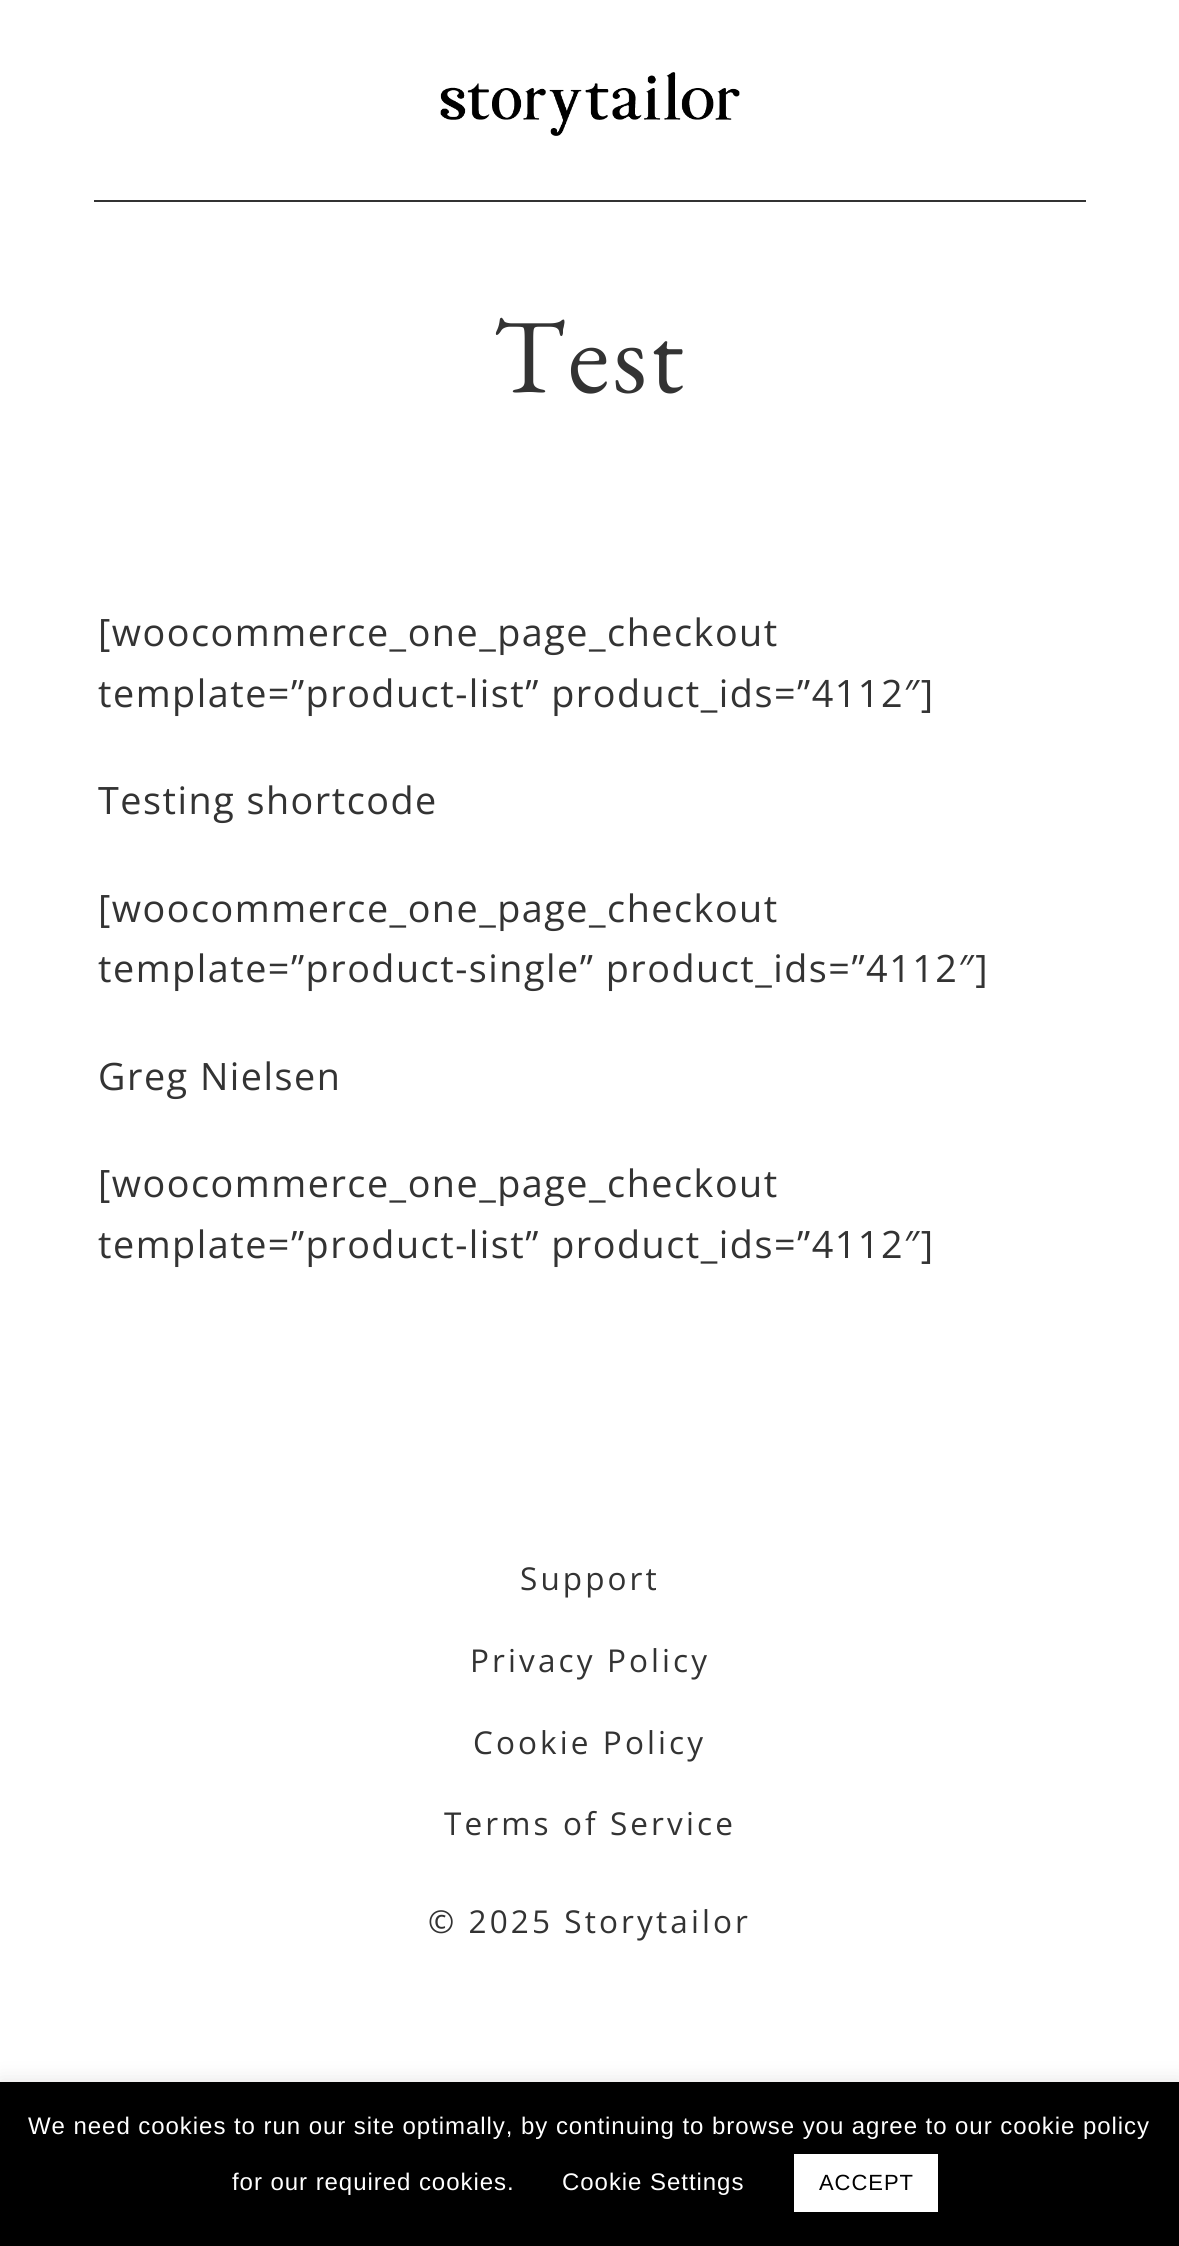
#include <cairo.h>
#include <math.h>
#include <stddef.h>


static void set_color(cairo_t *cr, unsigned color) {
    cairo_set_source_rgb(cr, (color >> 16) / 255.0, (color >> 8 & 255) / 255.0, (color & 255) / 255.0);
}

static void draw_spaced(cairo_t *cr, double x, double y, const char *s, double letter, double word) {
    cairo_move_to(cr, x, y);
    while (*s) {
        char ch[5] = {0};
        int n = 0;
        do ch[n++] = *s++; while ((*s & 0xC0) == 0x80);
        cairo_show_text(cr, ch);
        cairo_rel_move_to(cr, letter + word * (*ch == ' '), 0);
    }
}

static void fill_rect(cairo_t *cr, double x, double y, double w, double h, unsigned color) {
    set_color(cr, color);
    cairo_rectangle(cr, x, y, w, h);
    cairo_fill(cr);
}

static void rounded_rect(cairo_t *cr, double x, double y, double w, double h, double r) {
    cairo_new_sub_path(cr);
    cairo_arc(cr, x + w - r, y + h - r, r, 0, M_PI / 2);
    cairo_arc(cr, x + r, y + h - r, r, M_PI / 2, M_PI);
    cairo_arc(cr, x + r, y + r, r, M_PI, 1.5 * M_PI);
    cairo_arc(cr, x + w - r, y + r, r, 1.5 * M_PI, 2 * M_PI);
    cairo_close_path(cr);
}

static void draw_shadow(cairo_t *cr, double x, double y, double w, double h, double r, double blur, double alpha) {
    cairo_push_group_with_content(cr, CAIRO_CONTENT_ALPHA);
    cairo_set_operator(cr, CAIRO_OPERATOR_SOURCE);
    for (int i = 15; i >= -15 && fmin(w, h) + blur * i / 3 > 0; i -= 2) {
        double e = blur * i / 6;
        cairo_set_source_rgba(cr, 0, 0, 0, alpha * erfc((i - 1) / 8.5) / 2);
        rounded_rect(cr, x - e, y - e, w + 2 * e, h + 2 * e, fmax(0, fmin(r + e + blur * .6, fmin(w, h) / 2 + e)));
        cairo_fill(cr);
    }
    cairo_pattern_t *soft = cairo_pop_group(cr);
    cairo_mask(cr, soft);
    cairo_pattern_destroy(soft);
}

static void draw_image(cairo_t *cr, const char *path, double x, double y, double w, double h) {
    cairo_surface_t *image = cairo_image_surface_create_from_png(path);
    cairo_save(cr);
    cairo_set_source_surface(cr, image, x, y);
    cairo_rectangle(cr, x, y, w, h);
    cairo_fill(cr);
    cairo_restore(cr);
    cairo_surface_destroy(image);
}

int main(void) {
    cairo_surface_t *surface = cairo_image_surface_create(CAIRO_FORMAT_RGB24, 1179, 2246);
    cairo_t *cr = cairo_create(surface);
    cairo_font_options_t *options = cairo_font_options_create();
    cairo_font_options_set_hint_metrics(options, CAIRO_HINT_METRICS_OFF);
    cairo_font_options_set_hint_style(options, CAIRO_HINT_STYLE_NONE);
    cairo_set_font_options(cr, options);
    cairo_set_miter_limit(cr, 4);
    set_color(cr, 0xFFFFFF);
    cairo_paint(cr);
    draw_image(cr, "assets/img1.png", 440, 72, 300, 64);
    fill_rect(cr, 94, 200, 992, 2, 0x333333);
    cairo_select_font_face(cr, "EB Garamond", CAIRO_FONT_SLANT_NORMAL, CAIRO_FONT_WEIGHT_NORMAL);
    cairo_set_font_size(cr, 107);
    draw_spaced(cr, 493, 392, "Test", 3, 0);
    cairo_select_font_face(cr, "Open Sans", CAIRO_FONT_SLANT_NORMAL, CAIRO_FONT_WEIGHT_NORMAL);
    cairo_set_font_size(cr, 37.75);
    draw_spaced(cr, 98, 646, "[woocommerce_one_page_checkout", 1.5, 0);
    draw_spaced(cr, 98, 707, "template=”product-list” product_ids=”4112″]", 1.5, 0);
    draw_spaced(cr, 98, 814, "Testing shortcode", 1.5, 0);
    draw_spaced(cr, 98, 922, "[woocommerce_one_page_checkout", 1.5, 0);
    draw_spaced(cr, 98, 982, "template=”product-single” product_ids=”4112″]", 1.5, 0);
    draw_spaced(cr, 98, 1090, "Greg Nielsen", 1.5, 0);
    draw_spaced(cr, 98, 1197, "[woocommerce_one_page_checkout", 1.5, 0);
    draw_spaced(cr, 98, 1258, "template=”product-list” product_ids=”4112″]", 1.5, 0);
    cairo_set_font_size(cr, 31.5);
    draw_spaced(cr, 520, 1590, "Support", 3.1, 0);
    draw_spaced(cr, 470, 1672, "Privacy Policy", 3.1, 0);
    draw_spaced(cr, 473, 1754, "Cookie Policy", 3.1, 0);
    draw_spaced(cr, 444, 1835, "Terms of Service", 3.1, 0);
    draw_spaced(cr, 428, 1933, "© 2025 Storytailor", 3.1, 0);
    set_color(cr, 0xACABAB);
    draw_shadow(cr, 0, 2080, 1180, 164, 0, 10, 0.3);
    fill_rect(cr, 0, 2082, 1179, 164, 0x000000);
    cairo_select_font_face(cr, "Liberation Sans", CAIRO_FONT_SLANT_NORMAL, CAIRO_FONT_WEIGHT_NORMAL);
    cairo_set_font_size(cr, 24);
    set_color(cr, 0xFFFFFF);
    draw_spaced(cr, 28, 2134, "We need cookies to run our site optimally, by continuing to browse you agree to our cookie policy", 0.95, 0);
    draw_spaced(cr, 232, 2190, "for our required cookies.", 0.95, 0);
    draw_spaced(cr, 562, 2190, "Cookie Settings", 0.95, 0);
    fill_rect(cr, 794, 2154, 144, 58, 0xFFFFFF);
    cairo_set_font_size(cr, 22);
    set_color(cr, 0x000000);
    draw_spaced(cr, 819, 2190, "ACCEPT", 0.95, 0);
    cairo_surface_write_to_png(surface, "output.png");
    cairo_font_options_destroy(options);
    cairo_destroy(cr);
    cairo_surface_destroy(surface);
    return 0;
}
